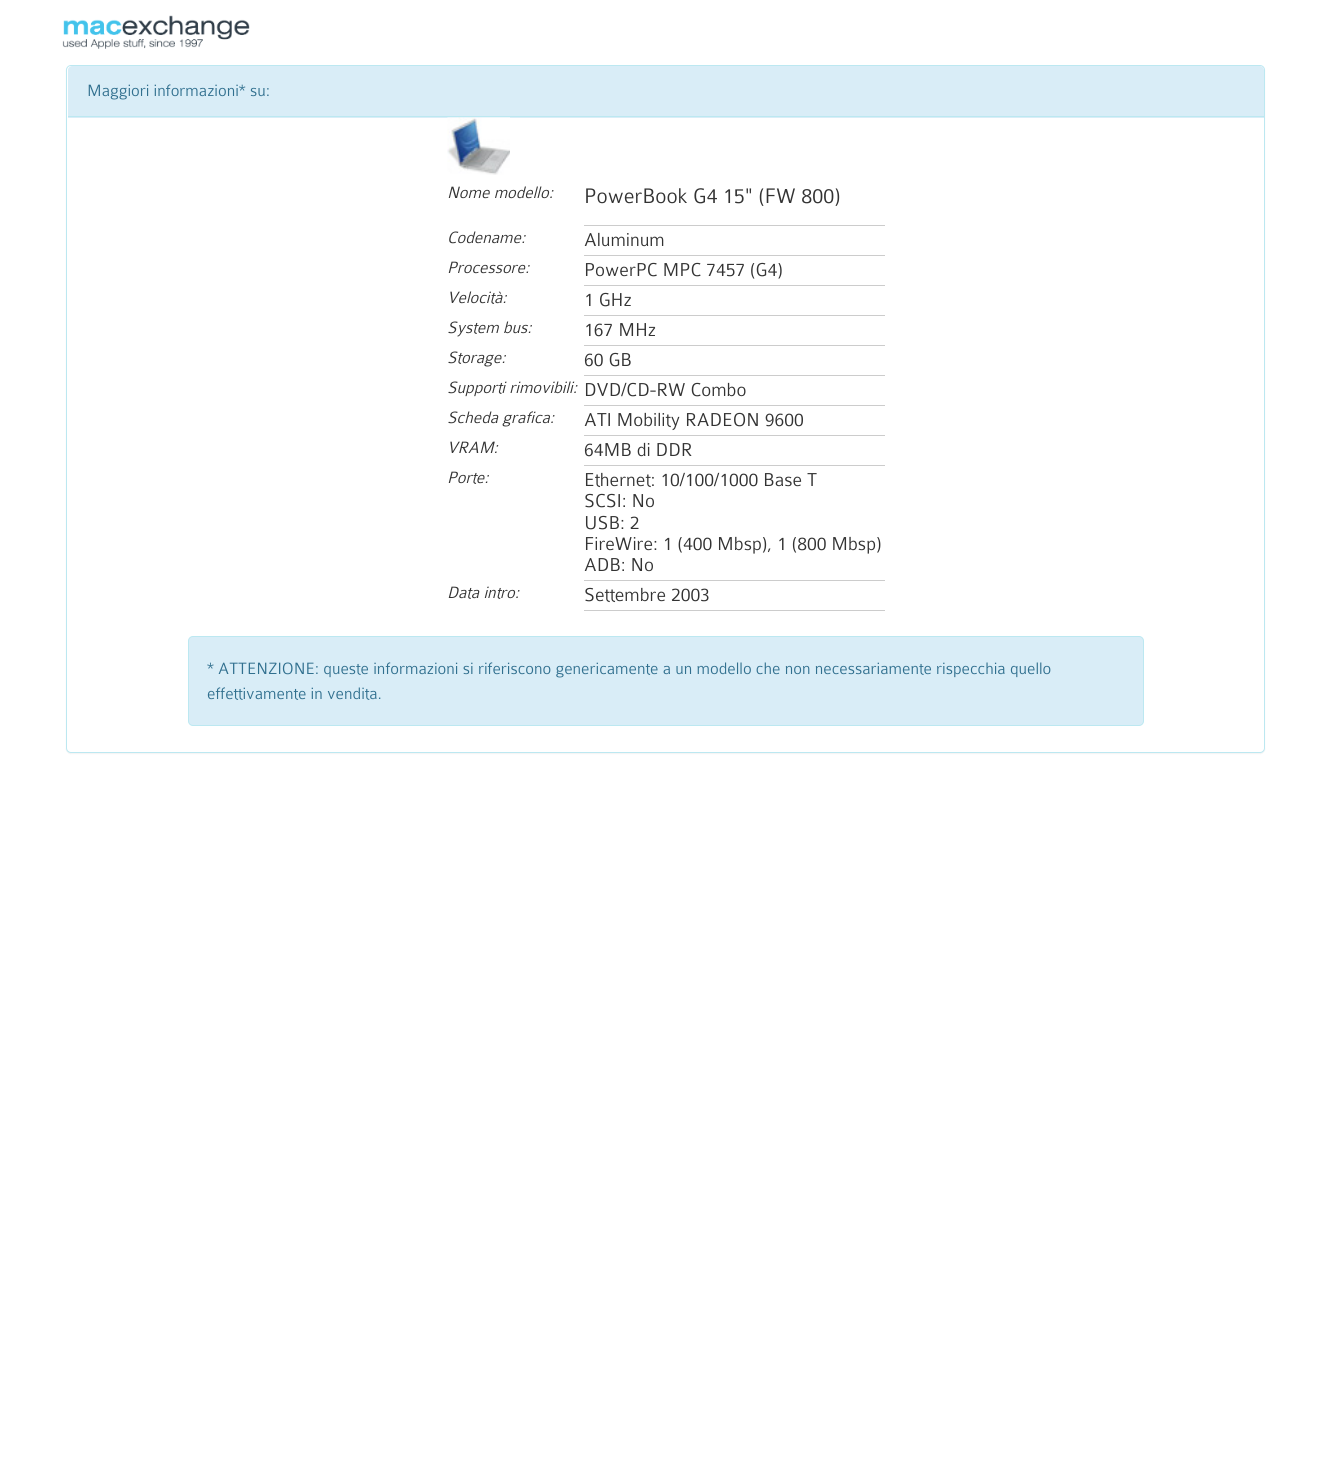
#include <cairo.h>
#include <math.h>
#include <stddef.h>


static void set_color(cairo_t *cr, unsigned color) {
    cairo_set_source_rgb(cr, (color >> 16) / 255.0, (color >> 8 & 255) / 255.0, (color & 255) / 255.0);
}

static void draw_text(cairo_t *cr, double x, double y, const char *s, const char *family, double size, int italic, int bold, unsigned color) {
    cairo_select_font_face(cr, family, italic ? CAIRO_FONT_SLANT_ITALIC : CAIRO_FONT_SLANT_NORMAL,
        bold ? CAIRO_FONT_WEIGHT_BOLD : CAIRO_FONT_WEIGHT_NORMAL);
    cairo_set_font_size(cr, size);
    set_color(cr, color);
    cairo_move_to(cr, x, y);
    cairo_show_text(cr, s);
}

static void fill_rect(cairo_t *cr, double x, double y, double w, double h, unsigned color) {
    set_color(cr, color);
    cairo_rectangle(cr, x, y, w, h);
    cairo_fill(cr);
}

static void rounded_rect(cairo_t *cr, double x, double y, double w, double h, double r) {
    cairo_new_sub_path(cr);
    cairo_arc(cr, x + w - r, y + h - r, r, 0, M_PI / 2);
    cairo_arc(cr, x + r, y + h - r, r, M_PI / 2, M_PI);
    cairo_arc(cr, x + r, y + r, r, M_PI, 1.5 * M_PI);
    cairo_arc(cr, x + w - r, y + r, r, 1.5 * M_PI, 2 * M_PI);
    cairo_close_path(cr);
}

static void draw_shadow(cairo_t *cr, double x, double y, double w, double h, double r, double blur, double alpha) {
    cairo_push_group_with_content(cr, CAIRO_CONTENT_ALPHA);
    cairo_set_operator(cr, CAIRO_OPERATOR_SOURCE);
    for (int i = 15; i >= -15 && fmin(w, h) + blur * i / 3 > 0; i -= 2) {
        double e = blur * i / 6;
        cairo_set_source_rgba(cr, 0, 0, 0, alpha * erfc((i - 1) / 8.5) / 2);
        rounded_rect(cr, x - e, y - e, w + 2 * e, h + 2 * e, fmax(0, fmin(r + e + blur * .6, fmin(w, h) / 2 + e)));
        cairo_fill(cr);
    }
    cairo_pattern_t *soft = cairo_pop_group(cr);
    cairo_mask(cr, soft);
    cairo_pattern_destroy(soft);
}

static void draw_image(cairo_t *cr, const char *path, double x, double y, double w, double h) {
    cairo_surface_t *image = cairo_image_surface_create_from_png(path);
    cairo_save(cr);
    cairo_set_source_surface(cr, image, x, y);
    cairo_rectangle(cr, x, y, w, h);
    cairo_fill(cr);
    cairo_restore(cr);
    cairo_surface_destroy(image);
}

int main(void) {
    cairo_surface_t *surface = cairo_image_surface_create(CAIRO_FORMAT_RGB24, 1331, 1475);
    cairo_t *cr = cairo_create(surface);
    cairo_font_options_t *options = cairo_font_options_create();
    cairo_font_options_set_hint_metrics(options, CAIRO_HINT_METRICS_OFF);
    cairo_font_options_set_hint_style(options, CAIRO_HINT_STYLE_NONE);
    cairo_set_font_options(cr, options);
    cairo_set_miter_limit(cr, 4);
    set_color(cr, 0xFFFFFF);
    cairo_paint(cr);
    draw_image(cr, "assets/img1.png", 62, 15, 188, 34);
    set_color(cr, 0x000000);
    draw_shadow(cr, 66, 66, 1199, 688, 5, 0.5, 0.05);
    set_color(cr, 0xFFFFFF);
    rounded_rect(cr, 66.5, 65.5, 1198, 687, 4.5);
    cairo_fill_preserve(cr);
    set_color(cr, 0xBCE8F1);
    cairo_set_line_width(cr, 1);
    cairo_stroke(cr);
    set_color(cr, 0xD9EDF7);
    cairo_new_path(cr);
    cairo_move_to(cr, 72, 66);
    cairo_line_to(cr, 1260, 66);
    cairo_curve_to(cr, 1262, 66, 1264, 68, 1264, 70);
    cairo_line_to(cr, 1264, 118);
    cairo_line_to(cr, 68, 118);
    cairo_line_to(cr, 68, 70);
    cairo_curve_to(cr, 68, 68, 70, 66, 72, 66);
    cairo_close_path(cr);
    cairo_fill(cr);
    fill_rect(cr, 68, 116, 1196, 1, 0xBCE8F1);
    draw_text(cr, 87, 96, "Maggiori informazioni* su:", "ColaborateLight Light", 17.5, 0, 0, 0x31708F);
    draw_image(cr, "assets/img2.png", 447, 117, 63, 58);
    draw_text(cr, 447, 198, "Nome modello:", "ColaborateLight Light", 17.5, 1, 0, 0x333333);
    fill_rect(cr, 584, 225, 301, 1, 0xCCCCCC);
    draw_text(cr, 584, 203, "PowerBook G4 15\" (FW 800)", "ColaborateLight Light", 22.5, 0, 0, 0x333333);
    draw_text(cr, 447, 243, "Codename:", "ColaborateLight Light", 17.5, 1, 0, 0x333333);
    fill_rect(cr, 584, 255, 301, 1, 0xCCCCCC);
    draw_text(cr, 584, 246, "Aluminum", "ColaborateLight Light", 20, 0, 0, 0x333333);
    draw_text(cr, 447, 273, "Processore:", "ColaborateLight Light", 17.5, 1, 0, 0x333333);
    fill_rect(cr, 584, 285, 301, 1, 0xCCCCCC);
    draw_text(cr, 584, 276, "PowerPC MPC 7457 (G4)", "ColaborateLight Light", 20, 0, 0, 0x333333);
    draw_text(cr, 447, 303, "Velocità:", "ColaborateLight Light", 17.5, 1, 0, 0x333333);
    fill_rect(cr, 584, 315, 301, 1, 0xCCCCCC);
    draw_text(cr, 584, 306, "1 GHz", "ColaborateLight Light", 20, 0, 0, 0x333333);
    draw_text(cr, 447, 333, "System bus:", "ColaborateLight Light", 17.5, 1, 0, 0x333333);
    fill_rect(cr, 584, 345, 301, 1, 0xCCCCCC);
    draw_text(cr, 584, 336, "167 MHz", "ColaborateLight Light", 20, 0, 0, 0x333333);
    draw_text(cr, 447, 363, "Storage:", "ColaborateLight Light", 17.5, 1, 0, 0x333333);
    fill_rect(cr, 584, 375, 301, 1, 0xCCCCCC);
    draw_text(cr, 584, 366, "60 GB", "ColaborateLight Light", 20, 0, 0, 0x333333);
    draw_text(cr, 447, 393, "Supporti rimovibili:", "ColaborateLight Light", 17.5, 1, 0, 0x333333);
    fill_rect(cr, 584, 405, 301, 1, 0xCCCCCC);
    draw_text(cr, 584, 396, "DVD/CD-RW Combo", "ColaborateLight Light", 20, 0, 0, 0x333333);
    draw_text(cr, 447, 423, "Scheda grafica:", "ColaborateLight Light", 17.5, 1, 0, 0x333333);
    fill_rect(cr, 584, 435, 301, 1, 0xCCCCCC);
    draw_text(cr, 584, 426, "ATI Mobility RADEON 9600", "ColaborateLight Light", 20, 0, 0, 0x333333);
    draw_text(cr, 447, 453, "VRAM:", "ColaborateLight Light", 17.5, 1, 0, 0x333333);
    fill_rect(cr, 584, 465, 301, 1, 0xCCCCCC);
    draw_text(cr, 584, 456, "64MB di DDR", "ColaborateLight Light", 20, 0, 0, 0x333333);
    draw_text(cr, 447, 483, "Porte:", "ColaborateLight Light", 17.5, 1, 0, 0x333333);
    fill_rect(cr, 584, 580, 301, 1, 0xCCCCCC);
    draw_text(cr, 584, 486, "Ethernet: 10/100/1000 Base T", "ColaborateLight Light", 20, 0, 0, 0x333333);
    draw_text(cr, 584, 507, "SCSI: No", "ColaborateLight Light", 20, 0, 0, 0x333333);
    draw_text(cr, 584, 529, "USB: 2", "ColaborateLight Light", 20, 0, 0, 0x333333);
    draw_text(cr, 584, 550, "FireWire: 1 (400 Mbsp), 1 (800 Mbsp)", "ColaborateLight Light", 20, 0, 0, 0x333333);
    draw_text(cr, 584, 571, "ADB: No", "ColaborateLight Light", 20, 0, 0, 0x333333);
    draw_text(cr, 447, 598, "Data intro:", "ColaborateLight Light", 17.5, 1, 0, 0x333333);
    fill_rect(cr, 584, 610, 301, 1, 0xCCCCCC);
    draw_text(cr, 584, 601, "Settembre 2003", "ColaborateLight Light", 20, 0, 0, 0x333333);
    set_color(cr, 0xD9EDF7);
    rounded_rect(cr, 188.5, 636.5, 955, 89, 4.5);
    cairo_fill_preserve(cr);
    set_color(cr, 0xBCE8F1);
    cairo_stroke(cr);
    draw_text(cr, 207, 674, "* ATTENZIONE: queste informazioni si riferiscono genericamente a un modello che non necessariamente rispecchia quello", "ColaborateLight Light", 17.5, 0, 0, 0x31708F);
    draw_text(cr, 207, 699, "effettivamente in vendita.", "ColaborateLight Light", 17.5, 0, 0, 0x31708F);
    cairo_surface_write_to_png(surface, "output.png");
    cairo_font_options_destroy(options);
    cairo_destroy(cr);
    cairo_surface_destroy(surface);
    return 0;
}
